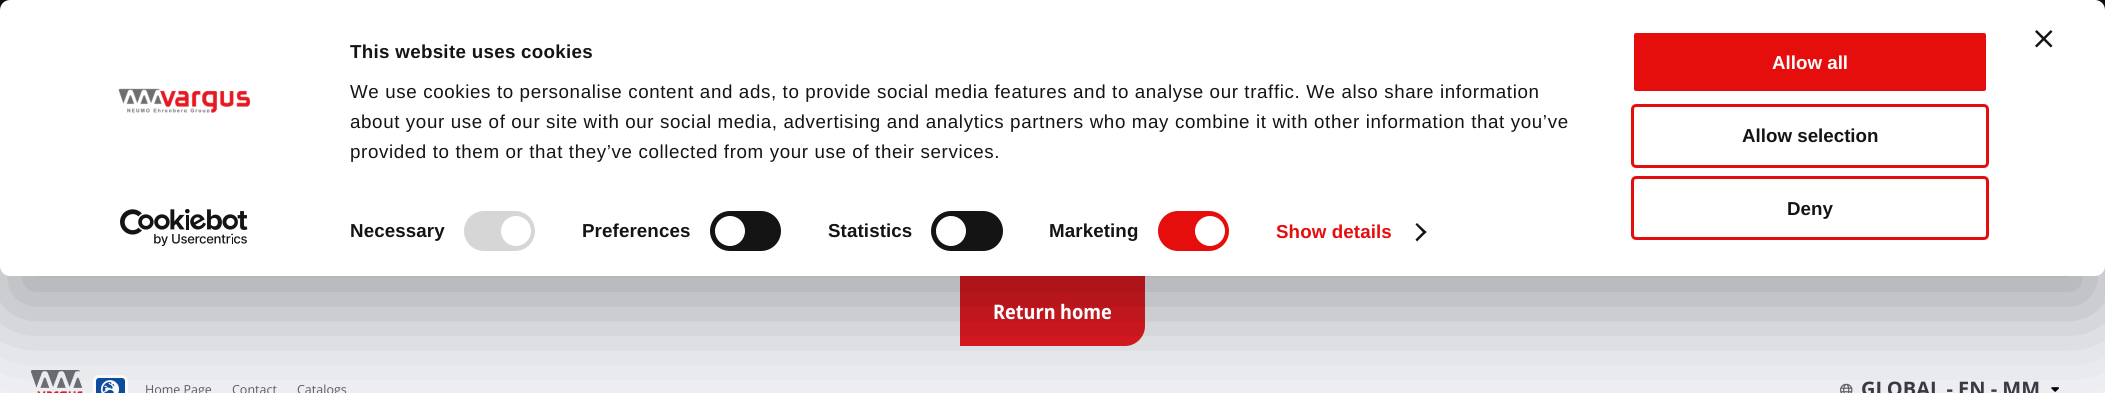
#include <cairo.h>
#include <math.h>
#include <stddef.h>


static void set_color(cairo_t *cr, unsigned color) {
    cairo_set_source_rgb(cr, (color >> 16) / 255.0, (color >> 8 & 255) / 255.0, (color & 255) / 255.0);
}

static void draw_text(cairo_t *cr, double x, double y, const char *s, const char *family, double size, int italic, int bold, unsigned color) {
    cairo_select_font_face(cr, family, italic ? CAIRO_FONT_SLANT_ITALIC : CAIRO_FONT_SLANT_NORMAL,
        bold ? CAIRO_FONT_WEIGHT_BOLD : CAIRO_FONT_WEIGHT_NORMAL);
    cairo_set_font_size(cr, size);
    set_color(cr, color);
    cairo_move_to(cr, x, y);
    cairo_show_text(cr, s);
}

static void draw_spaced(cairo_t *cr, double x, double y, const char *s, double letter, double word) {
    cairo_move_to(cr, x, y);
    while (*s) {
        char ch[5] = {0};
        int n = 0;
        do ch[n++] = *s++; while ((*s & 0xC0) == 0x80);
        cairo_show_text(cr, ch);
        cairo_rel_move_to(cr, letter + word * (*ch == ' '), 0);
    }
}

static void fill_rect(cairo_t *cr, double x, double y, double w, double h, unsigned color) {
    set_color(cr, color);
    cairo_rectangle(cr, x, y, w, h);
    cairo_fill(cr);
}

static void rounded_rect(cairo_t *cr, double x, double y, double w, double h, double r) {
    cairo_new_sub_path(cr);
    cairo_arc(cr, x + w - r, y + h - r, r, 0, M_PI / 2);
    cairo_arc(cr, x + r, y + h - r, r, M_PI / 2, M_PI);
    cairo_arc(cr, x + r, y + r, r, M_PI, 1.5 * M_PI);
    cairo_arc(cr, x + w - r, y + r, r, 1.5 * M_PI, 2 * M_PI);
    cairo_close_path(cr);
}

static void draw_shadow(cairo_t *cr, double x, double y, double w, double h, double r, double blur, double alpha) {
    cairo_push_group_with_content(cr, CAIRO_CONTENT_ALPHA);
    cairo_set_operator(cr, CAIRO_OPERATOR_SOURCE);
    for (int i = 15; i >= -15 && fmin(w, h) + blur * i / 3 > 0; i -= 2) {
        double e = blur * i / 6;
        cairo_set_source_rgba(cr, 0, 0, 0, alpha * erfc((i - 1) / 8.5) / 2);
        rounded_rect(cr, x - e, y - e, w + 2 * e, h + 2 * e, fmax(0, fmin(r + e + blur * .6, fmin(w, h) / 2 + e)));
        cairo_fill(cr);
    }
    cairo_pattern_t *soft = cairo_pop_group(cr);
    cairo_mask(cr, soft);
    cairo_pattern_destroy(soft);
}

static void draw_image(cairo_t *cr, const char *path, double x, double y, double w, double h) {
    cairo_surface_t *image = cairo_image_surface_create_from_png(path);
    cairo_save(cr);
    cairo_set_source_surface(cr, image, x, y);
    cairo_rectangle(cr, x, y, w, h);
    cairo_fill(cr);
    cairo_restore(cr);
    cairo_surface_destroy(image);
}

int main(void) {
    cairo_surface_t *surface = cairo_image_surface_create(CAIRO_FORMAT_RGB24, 2105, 393);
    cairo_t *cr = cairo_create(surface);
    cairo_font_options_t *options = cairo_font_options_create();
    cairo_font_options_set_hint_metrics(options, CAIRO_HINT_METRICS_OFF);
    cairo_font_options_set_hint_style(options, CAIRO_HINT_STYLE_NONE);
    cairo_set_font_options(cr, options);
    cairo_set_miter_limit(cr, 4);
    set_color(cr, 0xF0F1F5);
    cairo_paint(cr);
    fill_rect(cr, 0, 0, 2105, 10, 0x0F0F0F);
    set_color(cr, 0xE21A22);
    cairo_new_path(cr);
    cairo_move_to(cr, 960, 276);
    cairo_line_to(cr, 1145, 276);
    cairo_line_to(cr, 1145, 326);
    cairo_curve_to(cr, 1145, 337, 1136, 346, 1125, 346);
    cairo_line_to(cr, 960, 346);
    cairo_close_path(cr);
    cairo_fill(cr);
    draw_image(cr, "assets/img4.png", 31, 370, 52, 23);
    draw_image(cr, "assets/img5.png", 96, 378, 29, 15);
    rounded_rect(cr, 94.5, 376.5, 32, 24, 4.5);
    set_color(cr, 0xFFFFFF);
    cairo_set_line_width(cr, 3);
    cairo_stroke(cr);
    draw_image(cr, "assets/img6.png", 1840, 383, 13, 10);
    draw_image(cr, "assets/img7.png", 2051, 387, 8, 5);
    set_color(cr, 0x000000);
    draw_shadow(cr, 0, 38, 2105, 276, 10, 44, 0.3);
    set_color(cr, 0xFFFFFF);
    rounded_rect(cr, 0, 0, 2105, 276, 10);
    cairo_fill(cr);
    draw_image(cr, "assets/img1.png", 2035, 30, 18, 18);
    draw_image(cr, "assets/img2.png", 118, 88, 132, 25);
    draw_image(cr, "assets/img3.png", 120, 209, 128, 37);
    cairo_select_font_face(cr, "Liberation Sans", CAIRO_FONT_SLANT_NORMAL, CAIRO_FONT_WEIGHT_BOLD);
    cairo_set_font_size(cr, 18.75);
    set_color(cr, 0x141414);
    draw_spaced(cr, 350, 58, "This website uses cookies", 0.3, 0);
    cairo_select_font_face(cr, "Liberation Sans", CAIRO_FONT_SLANT_NORMAL, CAIRO_FONT_WEIGHT_NORMAL);
    draw_spaced(cr, 350, 98, "We use cookies to personalise content and ads, to provide social media features and to analyse our traffic. We also share information", 0.62, 0);
    draw_spaced(cr, 350, 128, "about your use of our site with our social media, advertising and analytics partners who may combine it with other information that you’ve", 0.62, 0);
    draw_spaced(cr, 350, 158, "provided to them or that they’ve collected from your use of their services.", 0.62, 0);
    cairo_select_font_face(cr, "Liberation Sans", CAIRO_FONT_SLANT_NORMAL, CAIRO_FONT_WEIGHT_BOLD);
    draw_spaced(cr, 350, 237, "Necessary", 0.1, 0);
    set_color(cr, 0xD6D6D6);
    rounded_rect(cr, 464, 211, 71, 40, 20);
    cairo_fill(cr);
    set_color(cr, 0xFFFFFF);
    cairo_arc(cr, 516, 231, 15, 0, 2 * M_PI);
    cairo_fill(cr);
    set_color(cr, 0x141414);
    draw_spaced(cr, 582, 237, "Preferences", 0.1, 0);
    rounded_rect(cr, 710, 211, 71, 40, 20);
    cairo_fill(cr);
    set_color(cr, 0xFFFFFF);
    cairo_arc(cr, 730, 231, 15, 0, 2 * M_PI);
    cairo_fill(cr);
    set_color(cr, 0x141414);
    draw_spaced(cr, 828, 237, "Statistics", 0.1, 0);
    rounded_rect(cr, 931, 211, 72, 40, 20);
    cairo_fill(cr);
    set_color(cr, 0xFFFFFF);
    cairo_arc(cr, 951, 231, 15, 0, 2 * M_PI);
    cairo_fill(cr);
    set_color(cr, 0x141414);
    draw_spaced(cr, 1049, 237, "Marketing", 0.1, 0);
    set_color(cr, 0xE60D0D);
    rounded_rect(cr, 1158, 211, 71, 40, 20);
    cairo_fill(cr);
    set_color(cr, 0xFFFFFF);
    cairo_arc(cr, 1210, 231, 15, 0, 2 * M_PI);
    cairo_fill(cr);
    set_color(cr, 0xE60D0D);
    draw_spaced(cr, 1276, 238, "Show details", 0.1, 0);
    set_color(cr, 0x141414);
    cairo_new_path(cr);
    cairo_move_to(cr, 1417, 223);
    cairo_line_to(cr, 1426.5, 232);
    cairo_line_to(cr, 1424.5, 234);
    cairo_line_to(cr, 1415.5, 224.5);
    cairo_close_path(cr);
    cairo_fill(cr);
    cairo_new_path(cr);
    cairo_move_to(cr, 1424.5, 230.5);
    cairo_line_to(cr, 1426.5, 232);
    cairo_line_to(cr, 1417, 241.5);
    cairo_line_to(cr, 1415.5, 239.5);
    cairo_close_path(cr);
    cairo_fill(cr);
    set_color(cr, 0xE60D0D);
    rounded_rect(cr, 1632.5, 31.5, 355, 61, 3.5);
    cairo_fill_preserve(cr);
    set_color(cr, 0xFFFFFF);
    cairo_stroke(cr);
    draw_text(cr, 1772, 69, "Allow all", "Liberation Sans", 18.75, 0, 1, 0xFFFFFF);
    rounded_rect(cr, 1632.5, 105.5, 355, 61, 3.5);
    set_color(cr, 0xE60D0D);
    cairo_stroke(cr);
    draw_text(cr, 1742, 142, "Allow selection", "Liberation Sans", 18.75, 0, 1, 0x141414);
    rounded_rect(cr, 1632.5, 177.5, 355, 61, 3.5);
    set_color(cr, 0xE60D0D);
    cairo_stroke(cr);
    draw_text(cr, 1787, 215, "Deny", "Liberation Sans", 18.75, 0, 1, 0x141414);
    draw_text(cr, 993, 319, "Return home", "Open Sans", 20, 0, 1, 0xFFFFFF);
    draw_text(cr, 145, 394, "Home Page", "Open Sans", 12.5, 0, 0, 0x5E5C62);
    draw_text(cr, 232, 394, "Contact", "Open Sans", 12.5, 0, 0, 0x5E5C62);
    draw_text(cr, 297, 394, "Catalogs", "Open Sans", 12.5, 0, 0, 0x5E5C62);
    draw_text(cr, 1861, 396, "GLOBAL - EN - MM", "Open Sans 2", 20, 0, 1, 0x3D3845);
    cairo_surface_write_to_png(surface, "output.png");
    cairo_font_options_destroy(options);
    cairo_destroy(cr);
    cairo_surface_destroy(surface);
    return 0;
}
